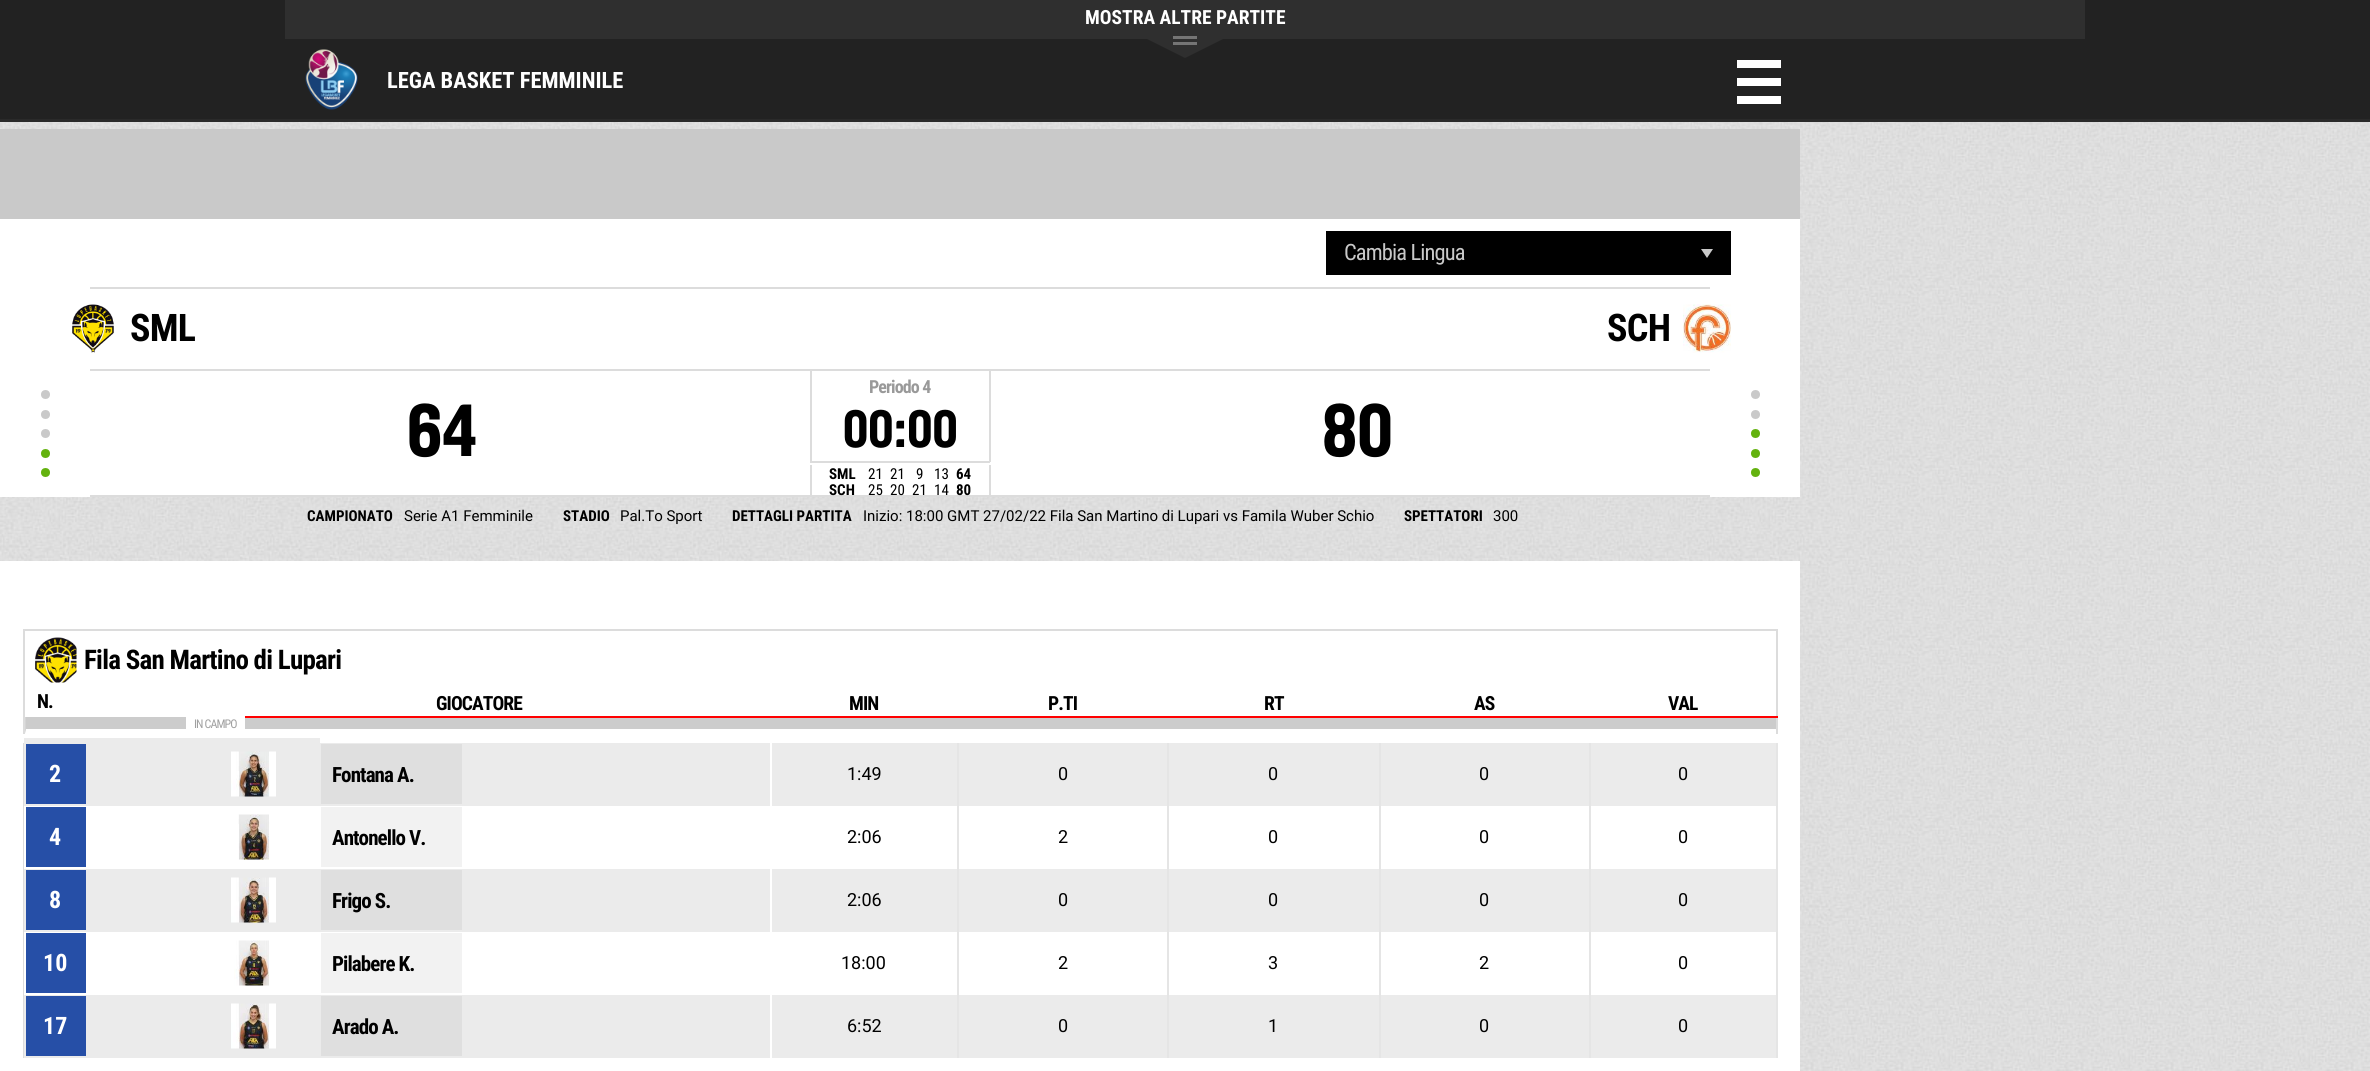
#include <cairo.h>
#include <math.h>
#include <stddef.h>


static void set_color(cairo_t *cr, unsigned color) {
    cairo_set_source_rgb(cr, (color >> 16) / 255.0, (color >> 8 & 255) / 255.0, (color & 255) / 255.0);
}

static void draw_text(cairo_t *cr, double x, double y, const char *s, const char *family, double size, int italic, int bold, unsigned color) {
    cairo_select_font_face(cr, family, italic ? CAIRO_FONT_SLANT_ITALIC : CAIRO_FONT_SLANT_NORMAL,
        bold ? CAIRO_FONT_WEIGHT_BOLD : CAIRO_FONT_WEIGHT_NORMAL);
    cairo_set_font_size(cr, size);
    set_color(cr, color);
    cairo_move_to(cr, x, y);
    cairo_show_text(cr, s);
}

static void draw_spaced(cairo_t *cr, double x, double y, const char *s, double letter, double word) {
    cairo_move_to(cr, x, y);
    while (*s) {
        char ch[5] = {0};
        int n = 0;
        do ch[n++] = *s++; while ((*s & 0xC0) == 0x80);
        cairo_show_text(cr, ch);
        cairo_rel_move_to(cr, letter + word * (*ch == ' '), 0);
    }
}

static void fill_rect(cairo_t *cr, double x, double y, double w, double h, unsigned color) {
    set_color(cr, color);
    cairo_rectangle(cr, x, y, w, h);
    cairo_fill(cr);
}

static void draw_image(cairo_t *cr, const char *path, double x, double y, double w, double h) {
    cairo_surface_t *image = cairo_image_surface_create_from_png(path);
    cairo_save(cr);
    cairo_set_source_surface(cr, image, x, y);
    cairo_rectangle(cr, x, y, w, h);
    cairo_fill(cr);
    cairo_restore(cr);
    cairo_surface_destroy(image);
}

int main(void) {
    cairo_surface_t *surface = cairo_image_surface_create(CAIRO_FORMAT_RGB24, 2370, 1071);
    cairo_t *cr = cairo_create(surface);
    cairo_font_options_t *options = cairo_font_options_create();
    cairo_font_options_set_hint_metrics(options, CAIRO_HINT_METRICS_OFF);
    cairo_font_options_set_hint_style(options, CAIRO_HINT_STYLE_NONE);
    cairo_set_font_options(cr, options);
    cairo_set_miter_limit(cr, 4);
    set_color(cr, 0xFFFFFF);
    cairo_paint(cr);
    draw_image(cr, "assets/img1.png", 0, 122, 2370, 949);
    fill_rect(cr, 0, 0, 2370, 119, 0x222222);
    fill_rect(cr, 0, 119, 2370, 3, 0x2A2A2A);
    fill_rect(cr, 285, 0, 1800, 39, 0x2F2F2F);
    draw_text(cr, 1085, 24, "MOSTRA ALTRE PARTITE", "Roboto Condensed", 19.5, 0, 1, 0xFFFFFF);
    set_color(cr, 0x2F2F2F);
    cairo_new_path(cr);
    cairo_move_to(cr, 1125, 28);
    cairo_line_to(cr, 1245, 28);
    cairo_line_to(cr, 1185, 58);
    cairo_close_path(cr);
    cairo_fill(cr);
    fill_rect(cr, 1173, 36, 24, 3, 0x757575);
    fill_rect(cr, 1173, 42, 24, 3, 0x757575);
    draw_image(cr, "assets/img2.png", 305, 49, 53, 61);
    draw_text(cr, 387, 88, "LEGA BASKET FEMMINILE", "Roboto Condensed", 22.5, 0, 1, 0xFFFFFF);
    fill_rect(cr, 0, 129, 1800, 90, 0xC9C9C9);
    fill_rect(cr, 1737, 60, 44, 8, 0xFFFFFF);
    fill_rect(cr, 1737, 78, 44, 8, 0xFFFFFF);
    fill_rect(cr, 1737, 96, 44, 8, 0xFFFFFF);
    fill_rect(cr, 0, 219, 1800, 278, 0xFFFFFF);
    fill_rect(cr, 1326, 231, 405, 44, 0x000000);
    cairo_select_font_face(cr, "Roboto Condensed", CAIRO_FONT_SLANT_NORMAL, CAIRO_FONT_WEIGHT_NORMAL);
    set_color(cr, 0xC9C9C9);
    draw_spaced(cr, 1344, 260, "Cambia Lingua", -0.9, 0);
    cairo_new_path(cr);
    cairo_move_to(cr, 1701, 249);
    cairo_line_to(cr, 1713, 249);
    cairo_line_to(cr, 1707, 258);
    cairo_close_path(cr);
    cairo_fill(cr);
    fill_rect(cr, 90, 287, 1620, 2, 0xDCDCDC);
    draw_image(cr, "assets/img3.png", 72, 304, 42, 49);
    cairo_select_font_face(cr, "Roboto Condensed", CAIRO_FONT_SLANT_NORMAL, CAIRO_FONT_WEIGHT_BOLD);
    cairo_set_font_size(cr, 38);
    set_color(cr, 0x000000);
    draw_spaced(cr, 130, 341, "SML", -0.75, 0);
    set_color(cr, 0xC9C9C9);
    cairo_new_path(cr);
    cairo_arc(cr, 45.5, 394.5, 4.5, 0, 2 * M_PI);
    cairo_fill(cr);
    cairo_arc(cr, 45.5, 414.5, 4.5, 0, 2 * M_PI);
    cairo_fill(cr);
    cairo_arc(cr, 45.5, 433.5, 4.5, 0, 2 * M_PI);
    cairo_fill(cr);
    set_color(cr, 0x63B20E);
    cairo_arc(cr, 45.5, 453.5, 4.5, 0, 2 * M_PI);
    cairo_fill(cr);
    cairo_arc(cr, 45.5, 472.5, 4.5, 0, 2 * M_PI);
    cairo_fill(cr);
    draw_text(cr, 407, 456, "64", "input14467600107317", 72, 0, 0, 0x000000);
    fill_rect(cr, 90, 369, 1620, 2, 0xDCDCDC);
    fill_rect(cr, 90, 495, 1620, 2, 0xDCDCDC);
    fill_rect(cr, 989, 371, 2, 91, 0xDCDCDC);
    fill_rect(cr, 810, 371, 2, 28, 0xDCDCDC);
    cairo_select_font_face(cr, "Roboto Condensed", CAIRO_FONT_SLANT_NORMAL, CAIRO_FONT_WEIGHT_BOLD);
    cairo_set_font_size(cr, 18);
    set_color(cr, 0x999999);
    draw_spaced(cr, 869, 393, "Periodo 4", -0.9, 0);
    fill_rect(cr, 810, 461, 180, 2, 0xDCDCDC);
    fill_rect(cr, 810, 398, 2, 64, 0xDCDCDC);
    draw_text(cr, 843, 447, "00:00", "input14467600107317", 51, 0, 0, 0x000000);
    fill_rect(cr, 989, 465, 2, 32, 0xDCDCDC);
    fill_rect(cr, 810, 465, 2, 32, 0xDCDCDC);
    draw_text(cr, 829, 479, "SML", "Roboto Condensed", 15, 0, 1, 0x000000);
    draw_text(cr, 868, 479, "21", "Roboto Condensed", 15, 0, 0, 0x000000);
    draw_text(cr, 890, 479, "21", "Roboto Condensed", 15, 0, 0, 0x000000);
    draw_text(cr, 916, 479, "9", "Roboto Condensed", 15, 0, 0, 0x000000);
    draw_text(cr, 934, 479, "13", "Roboto Condensed", 15, 0, 0, 0x000000);
    draw_text(cr, 956, 479, "64", "Roboto Condensed", 15, 0, 1, 0x000000);
    draw_text(cr, 829, 495, "SCH", "Roboto Condensed", 15, 0, 1, 0x000000);
    draw_text(cr, 868, 495, "25", "Roboto Condensed", 15, 0, 0, 0x000000);
    draw_text(cr, 890, 495, "20", "Roboto Condensed", 15, 0, 0, 0x000000);
    draw_text(cr, 912, 495, "21", "Roboto Condensed", 15, 0, 0, 0x000000);
    draw_text(cr, 934, 495, "14", "Roboto Condensed", 15, 0, 0, 0x000000);
    draw_text(cr, 956, 495, "80", "Roboto Condensed", 15, 0, 1, 0x000000);
    cairo_set_font_size(cr, 38);
    draw_spaced(cr, 1607, 341, "SCH", -0.75, 0);
    draw_image(cr, "assets/img4.png", 1683, 304, 48, 49);
    draw_text(cr, 1322, 456, "80", "input14467600107317", 72, 0, 0, 0x000000);
    set_color(cr, 0xC9C9C9);
    cairo_new_path(cr);
    cairo_arc(cr, 1755.5, 394.5, 4.5, 0, 2 * M_PI);
    cairo_fill(cr);
    cairo_arc(cr, 1755.5, 414.5, 4.5, 0, 2 * M_PI);
    cairo_fill(cr);
    set_color(cr, 0x63B20E);
    cairo_arc(cr, 1755.5, 433.5, 4.5, 0, 2 * M_PI);
    cairo_fill(cr);
    cairo_arc(cr, 1755.5, 453.5, 4.5, 0, 2 * M_PI);
    cairo_fill(cr);
    cairo_arc(cr, 1755.5, 472.5, 4.5, 0, 2 * M_PI);
    cairo_fill(cr);
    draw_text(cr, 307, 521, "CAMPIONATO", "Roboto Condensed", 15, 0, 1, 0x000000);
    draw_text(cr, 404, 521, "Serie A1 Femminile", "Roboto", 15, 0, 0, 0x000000);
    draw_text(cr, 563, 521, "STADIO", "Roboto Condensed", 15, 0, 1, 0x000000);
    draw_text(cr, 620, 521, "Pal.To Sport", "Roboto", 15, 0, 0, 0x000000);
    draw_text(cr, 732, 521, "DETTAGLI PARTITA", "Roboto Condensed", 15, 0, 1, 0x000000);
    draw_text(cr, 863, 521, "Inizio: 18:00 GMT 27/02/22 Fila San Martino di Lupari vs Famila Wuber Schio", "Roboto", 15, 0, 0, 0x000000);
    draw_text(cr, 1404, 521, "SPETTATORI", "Roboto Condensed", 15, 0, 1, 0x000000);
    draw_text(cr, 1493, 521, "300", "Roboto", 15, 0, 0, 0x000000);
    fill_rect(cr, 0, 561, 1800, 510, 0xFFFFFF);
    fill_rect(cr, 23, 629, 1755, 2, 0xDCDCDC);
    fill_rect(cr, 1776, 629, 2, 105, 0xDCDCDC);
    fill_rect(cr, 23, 629, 2, 61, 0xDCDCDC);
    draw_image(cr, "assets/img5.png", 35, 637, 42, 46);
    cairo_select_font_face(cr, "Roboto Condensed", CAIRO_FONT_SLANT_NORMAL, CAIRO_FONT_WEIGHT_BOLD);
    cairo_set_font_size(cr, 27);
    set_color(cr, 0x000000);
    draw_spaced(cr, 84, 669, "Fila San Martino di Lupari", -0.75, 0);
    fill_rect(cr, 25, 717, 161, 17, 0xCCCCCC);
    set_color(cr, 0xFFFFFF);
    cairo_new_path(cr);
    cairo_move_to(cr, 188, 738);
    cairo_line_to(cr, 24, 738);
    cairo_line_to(cr, 26, 729);
    cairo_line_to(cr, 188, 729);
    cairo_close_path(cr);
    cairo_fill(cr);
    set_color(cr, 0xDCDCDC);
    cairo_new_path(cr);
    cairo_move_to(cr, 24, 738);
    cairo_line_to(cr, 24, 717);
    cairo_line_to(cr, 25.5, 717);
    cairo_line_to(cr, 25.5, 729);
    cairo_close_path(cr);
    cairo_fill(cr);
    fill_rect(cr, 23, 690, 2, 368, 0xDCDCDC);
    cairo_set_font_size(cr, 19.5);
    set_color(cr, 0x000000);
    draw_spaced(cr, 37, 708, "N.", -0.9, 0);
    draw_spaced(cr, 436, 710, "GIOCATORE", -0.9, 0);
    draw_spaced(cr, 849, 710, "MIN", -0.9, 0);
    draw_spaced(cr, 1048, 710, "P.TI", -0.9, 0);
    draw_spaced(cr, 1264, 710, "RT", -0.9, 0);
    draw_spaced(cr, 1474, 710, "AS", -0.9, 0);
    fill_rect(cr, 245, 716, 1533, 2, 0xFF0000);
    set_color(cr, 0x000000);
    draw_spaced(cr, 1668, 710, "VAL", -0.9, 0);
    fill_rect(cr, 23, 734, 2, 9, 0xFFFFFF);
    fill_rect(cr, 245, 718, 1531, 11, 0xCCCCCC);
    fill_rect(cr, 957, 738, 2, 320, 0xE5E5E5);
    fill_rect(cr, 1167, 738, 2, 320, 0xE5E5E5);
    fill_rect(cr, 1379, 738, 2, 320, 0xE5E5E5);
    fill_rect(cr, 1589, 738, 2, 320, 0xE5E5E5);
    fill_rect(cr, 1776, 738, 2, 320, 0xE5E5E5);
    fill_rect(cr, 957, 738, 821, 5, 0xFFFFFF);
    cairo_select_font_face(cr, "Roboto Condensed", CAIRO_FONT_SLANT_NORMAL, CAIRO_FONT_WEIGHT_NORMAL);
    cairo_set_font_size(cr, 12);
    set_color(cr, 0xA0A0A0);
    draw_spaced(cr, 194, 728, "IN CAMPO", -0.9, 0);
    fill_rect(cr, 24, 738, 296, 68, 0xEBEBEB);
    draw_image(cr, "assets/img6.png", 231, 751, 45, 46);
    fill_rect(cr, 26, 744, 60, 60, 0x264FA7);
    draw_text(cr, 49, 782, "2", "Roboto Condensed", 24, 0, 1, 0xFFFFFF);
    fill_rect(cr, 320, 743, 450, 63, 0xEBEBEB);
    fill_rect(cr, 321, 744, 141, 60, 0xDFDFDF);
    cairo_set_font_size(cr, 21);
    set_color(cr, 0x000000);
    draw_spaced(cr, 332, 782, "Fontana A.", -0.9, 0);
    fill_rect(cr, 772, 743, 185, 63, 0xEBEBEB);
    draw_text(cr, 847, 780, "1:49", "Roboto", 18, 0, 0, 0x000000);
    fill_rect(cr, 959, 743, 208, 63, 0xEBEBEB);
    draw_text(cr, 1058, 780, "0", "Roboto", 18, 0, 0, 0x000000);
    fill_rect(cr, 1169, 743, 210, 63, 0xEBEBEB);
    draw_text(cr, 1268, 780, "0", "Roboto", 18, 0, 0, 0x000000);
    fill_rect(cr, 1381, 743, 208, 63, 0xEBEBEB);
    draw_text(cr, 1479, 780, "0", "Roboto", 18, 0, 0, 0x000000);
    fill_rect(cr, 1591, 743, 185, 63, 0xEBEBEB);
    draw_text(cr, 1678, 780, "0", "Roboto", 18, 0, 0, 0x000000);
    fill_rect(cr, 24, 806, 1, 63, 0xFFFFFF);
    fill_rect(cr, 26, 807, 60, 60, 0x264FA7);
    draw_text(cr, 49, 845, "4", "Roboto Condensed", 24, 0, 1, 0xFFFFFF);
    draw_image(cr, "assets/img7.png", 238, 814, 32, 46);
    fill_rect(cr, 321, 807, 141, 60, 0xF2F2F2);
    cairo_set_font_size(cr, 21);
    set_color(cr, 0x000000);
    draw_spaced(cr, 332, 845, "Antonello V.", -0.9, 0);
    draw_text(cr, 847, 843, "2:06", "Roboto", 18, 0, 0, 0x000000);
    draw_text(cr, 1058, 843, "2", "Roboto", 18, 0, 0, 0x000000);
    draw_text(cr, 1268, 843, "0", "Roboto", 18, 0, 0, 0x000000);
    draw_text(cr, 1479, 843, "0", "Roboto", 18, 0, 0, 0x000000);
    draw_text(cr, 1678, 843, "0", "Roboto", 18, 0, 0, 0x000000);
    fill_rect(cr, 24, 869, 164, 63, 0xEBEBEB);
    fill_rect(cr, 26, 870, 60, 60, 0x264FA7);
    draw_text(cr, 49, 908, "8", "Roboto Condensed", 24, 0, 1, 0xFFFFFF);
    fill_rect(cr, 188, 869, 582, 63, 0xEBEBEB);
    draw_image(cr, "assets/img8.png", 231, 877, 45, 46);
    fill_rect(cr, 321, 870, 141, 60, 0xDFDFDF);
    cairo_set_font_size(cr, 21);
    set_color(cr, 0x000000);
    draw_spaced(cr, 332, 908, "Frigo S.", -0.9, 0);
    fill_rect(cr, 772, 869, 185, 63, 0xEBEBEB);
    draw_text(cr, 847, 906, "2:06", "Roboto", 18, 0, 0, 0x000000);
    fill_rect(cr, 959, 869, 208, 63, 0xEBEBEB);
    draw_text(cr, 1058, 906, "0", "Roboto", 18, 0, 0, 0x000000);
    fill_rect(cr, 1169, 869, 210, 63, 0xEBEBEB);
    draw_text(cr, 1268, 906, "0", "Roboto", 18, 0, 0, 0x000000);
    fill_rect(cr, 1381, 869, 208, 63, 0xEBEBEB);
    draw_text(cr, 1479, 906, "0", "Roboto", 18, 0, 0, 0x000000);
    fill_rect(cr, 1591, 869, 185, 63, 0xEBEBEB);
    draw_text(cr, 1678, 906, "0", "Roboto", 18, 0, 0, 0x000000);
    fill_rect(cr, 24, 932, 1, 63, 0xFFFFFF);
    fill_rect(cr, 26, 933, 60, 60, 0x264FA7);
    draw_text(cr, 43, 971, "10", "Roboto Condensed", 24, 0, 1, 0xFFFFFF);
    draw_image(cr, "assets/img9.png", 234, 940, 36, 46);
    fill_rect(cr, 321, 933, 141, 60, 0xF2F2F2);
    cairo_set_font_size(cr, 21);
    set_color(cr, 0x000000);
    draw_spaced(cr, 332, 971, "Pilabere K.", -0.9, 0);
    draw_text(cr, 841, 969, "18:00", "Roboto", 18, 0, 0, 0x000000);
    draw_text(cr, 1058, 969, "2", "Roboto", 18, 0, 0, 0x000000);
    draw_text(cr, 1268, 969, "3", "Roboto", 18, 0, 0, 0x000000);
    draw_text(cr, 1479, 969, "2", "Roboto", 18, 0, 0, 0x000000);
    draw_text(cr, 1678, 969, "0", "Roboto", 18, 0, 0, 0x000000);
    fill_rect(cr, 24, 995, 164, 63, 0xEBEBEB);
    fill_rect(cr, 26, 996, 60, 60, 0x264FA7);
    draw_text(cr, 43, 1034, "17", "Roboto Condensed", 24, 0, 1, 0xFFFFFF);
    fill_rect(cr, 188, 995, 582, 63, 0xEBEBEB);
    draw_image(cr, "assets/img10.png", 231, 1003, 45, 46);
    fill_rect(cr, 321, 996, 141, 60, 0xDFDFDF);
    cairo_set_font_size(cr, 21);
    set_color(cr, 0x000000);
    draw_spaced(cr, 332, 1034, "Arado A.", -0.9, 0);
    fill_rect(cr, 772, 995, 185, 63, 0xEBEBEB);
    draw_text(cr, 847, 1032, "6:52", "Roboto", 18, 0, 0, 0x000000);
    fill_rect(cr, 959, 995, 208, 63, 0xEBEBEB);
    draw_text(cr, 1058, 1032, "0", "Roboto", 18, 0, 0, 0x000000);
    fill_rect(cr, 1169, 995, 210, 63, 0xEBEBEB);
    draw_text(cr, 1268, 1032, "1", "Roboto", 18, 0, 0, 0x000000);
    fill_rect(cr, 1381, 995, 208, 63, 0xEBEBEB);
    draw_text(cr, 1479, 1032, "0", "Roboto", 18, 0, 0, 0x000000);
    fill_rect(cr, 1591, 995, 185, 63, 0xEBEBEB);
    draw_text(cr, 1678, 1032, "0", "Roboto", 18, 0, 0, 0x000000);
    cairo_surface_write_to_png(surface, "output.png");
    cairo_font_options_destroy(options);
    cairo_destroy(cr);
    cairo_surface_destroy(surface);
    return 0;
}
